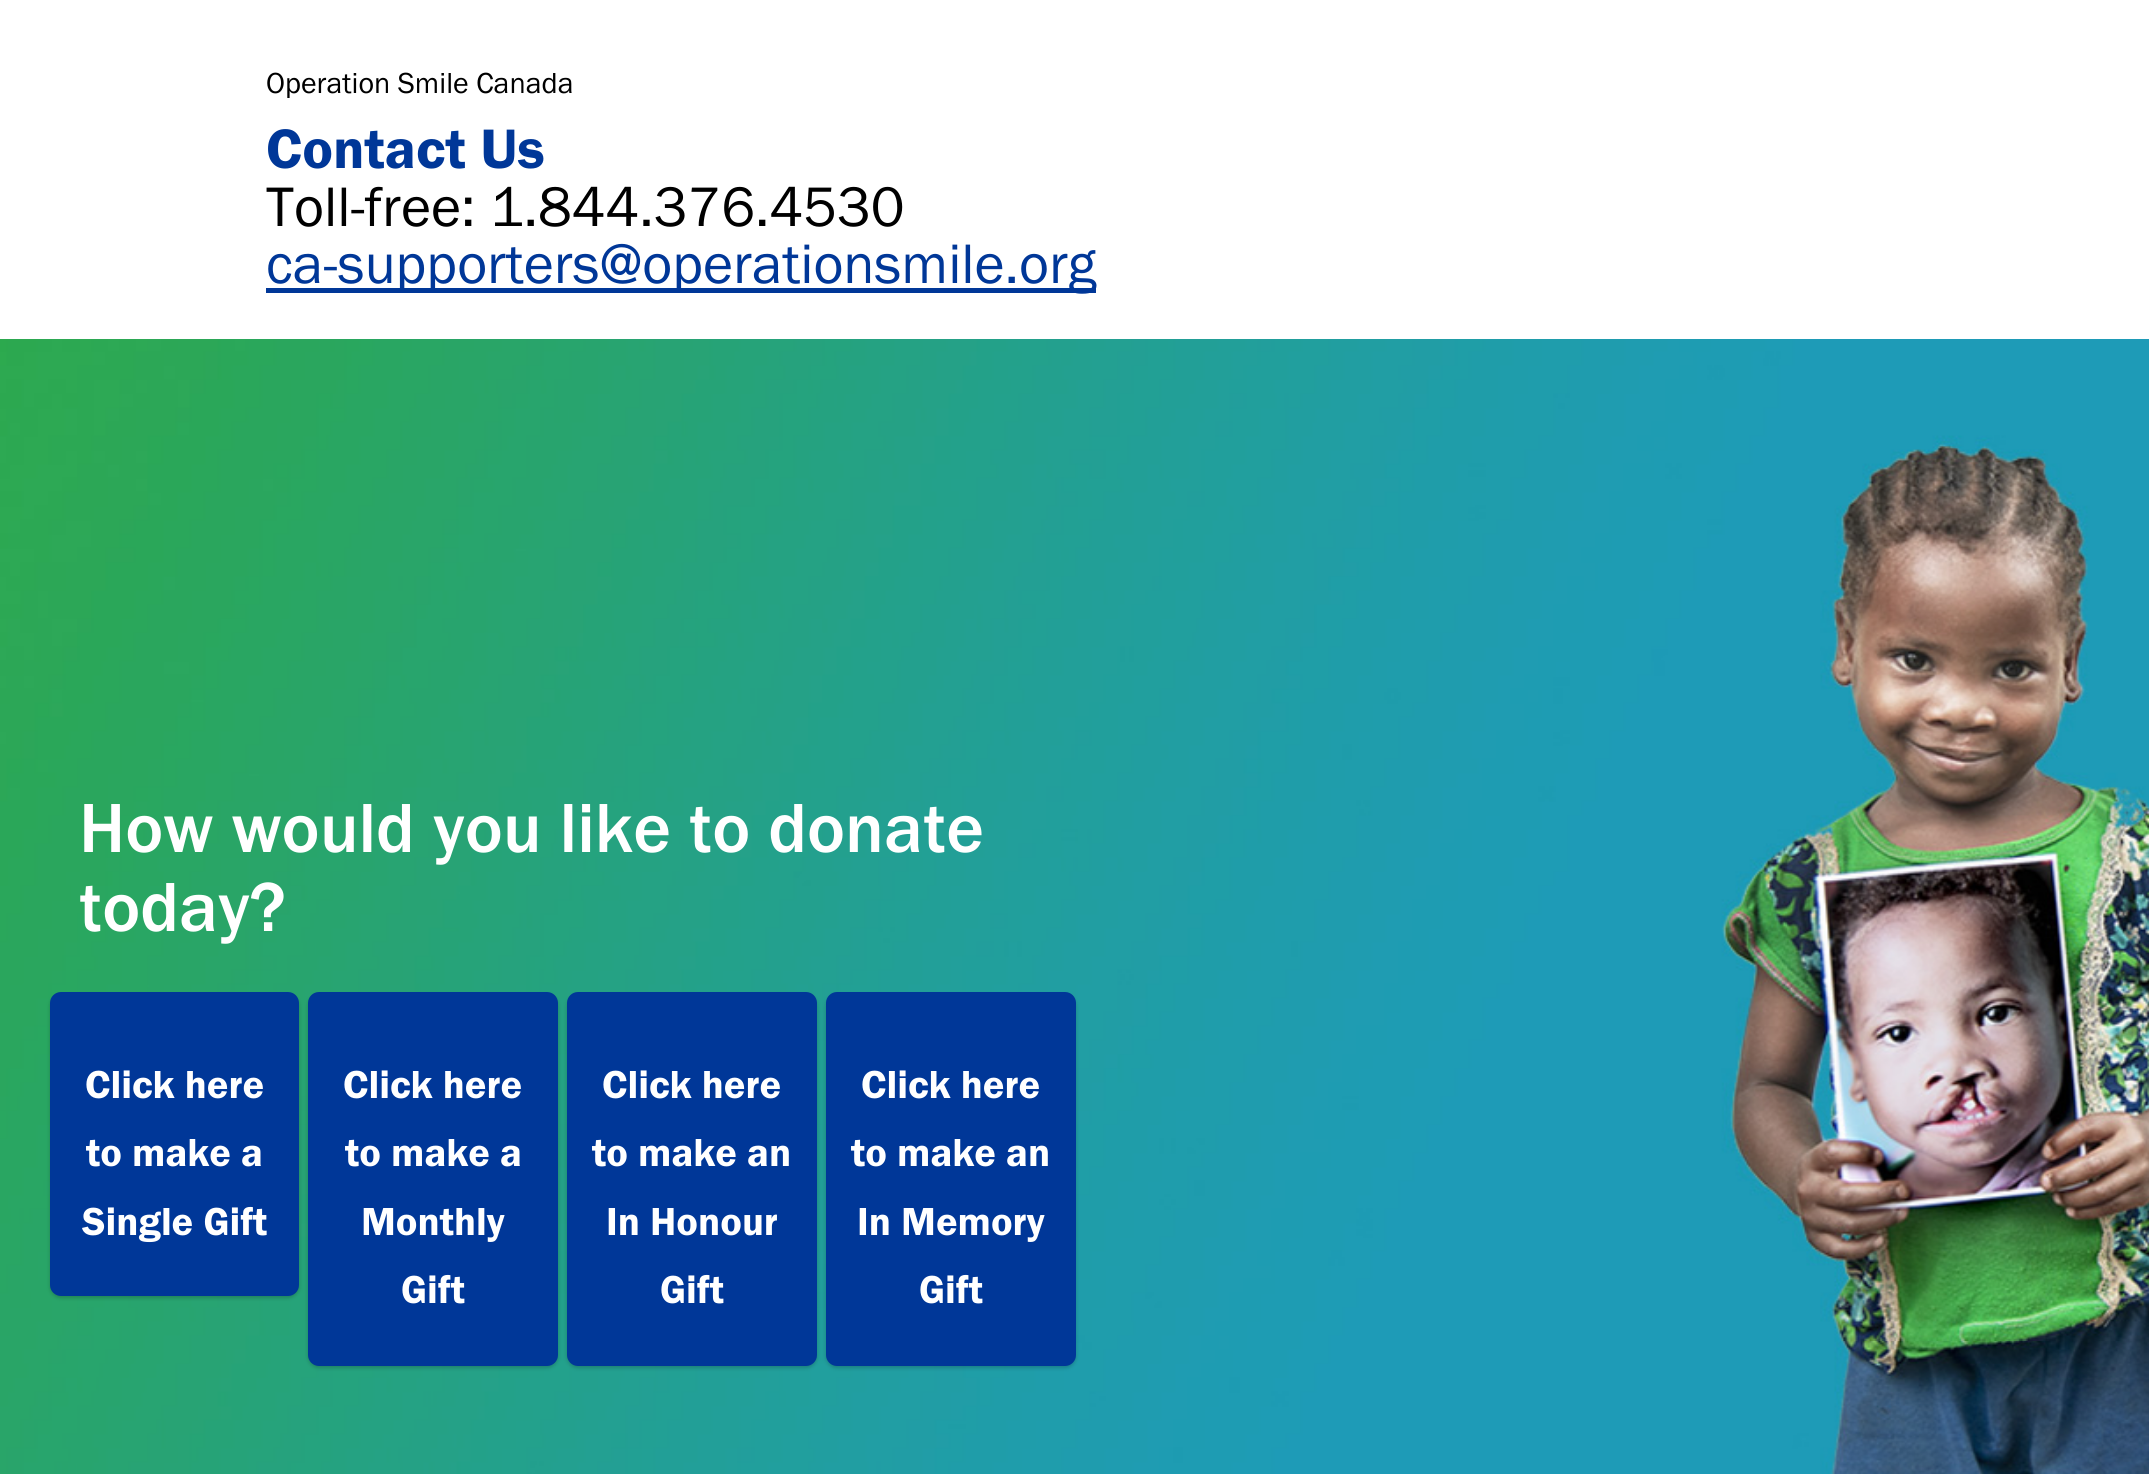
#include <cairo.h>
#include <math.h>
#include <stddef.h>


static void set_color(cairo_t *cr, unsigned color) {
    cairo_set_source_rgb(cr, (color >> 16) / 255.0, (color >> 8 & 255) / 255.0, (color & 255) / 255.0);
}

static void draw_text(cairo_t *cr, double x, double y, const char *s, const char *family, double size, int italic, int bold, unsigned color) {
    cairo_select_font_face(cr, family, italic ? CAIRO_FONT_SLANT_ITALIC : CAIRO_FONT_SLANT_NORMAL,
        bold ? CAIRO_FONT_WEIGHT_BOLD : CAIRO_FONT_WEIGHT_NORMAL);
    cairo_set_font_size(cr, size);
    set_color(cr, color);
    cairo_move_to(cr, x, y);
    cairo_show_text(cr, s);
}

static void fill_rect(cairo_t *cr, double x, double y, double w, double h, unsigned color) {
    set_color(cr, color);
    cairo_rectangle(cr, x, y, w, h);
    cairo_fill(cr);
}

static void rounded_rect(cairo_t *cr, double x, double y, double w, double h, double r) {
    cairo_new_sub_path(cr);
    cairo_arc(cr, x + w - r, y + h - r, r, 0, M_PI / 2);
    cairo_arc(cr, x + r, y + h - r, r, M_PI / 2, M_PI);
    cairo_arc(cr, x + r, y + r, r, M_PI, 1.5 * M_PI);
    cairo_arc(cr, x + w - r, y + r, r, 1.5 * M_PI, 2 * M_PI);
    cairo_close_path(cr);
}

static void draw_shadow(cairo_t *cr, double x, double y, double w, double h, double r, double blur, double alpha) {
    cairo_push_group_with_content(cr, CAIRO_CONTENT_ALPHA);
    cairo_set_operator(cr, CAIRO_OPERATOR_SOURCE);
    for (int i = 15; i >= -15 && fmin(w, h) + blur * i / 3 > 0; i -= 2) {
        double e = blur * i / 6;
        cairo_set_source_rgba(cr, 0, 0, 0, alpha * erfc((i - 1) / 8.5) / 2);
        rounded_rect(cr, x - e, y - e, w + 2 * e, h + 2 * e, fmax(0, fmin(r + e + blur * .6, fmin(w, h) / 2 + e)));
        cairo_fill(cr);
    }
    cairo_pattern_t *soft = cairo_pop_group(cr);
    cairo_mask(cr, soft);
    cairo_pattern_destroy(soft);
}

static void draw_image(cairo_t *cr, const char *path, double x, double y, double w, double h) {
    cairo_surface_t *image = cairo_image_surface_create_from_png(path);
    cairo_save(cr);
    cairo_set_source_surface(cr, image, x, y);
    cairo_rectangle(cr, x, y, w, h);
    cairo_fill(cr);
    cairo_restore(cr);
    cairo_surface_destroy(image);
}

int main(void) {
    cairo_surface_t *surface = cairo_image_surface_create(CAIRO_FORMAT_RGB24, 2149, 1474);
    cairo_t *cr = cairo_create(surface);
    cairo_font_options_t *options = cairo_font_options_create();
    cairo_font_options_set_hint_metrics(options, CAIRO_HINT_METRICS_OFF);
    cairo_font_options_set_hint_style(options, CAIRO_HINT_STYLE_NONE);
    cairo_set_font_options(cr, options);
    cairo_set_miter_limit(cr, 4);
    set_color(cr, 0xFFFFFF);
    cairo_paint(cr);
    draw_text(cr, 266, 93, "Operation Smile Canada", "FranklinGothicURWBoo", 30, 0, 0, 0x000000);
    draw_text(cr, 266, 168, "Contact Us", "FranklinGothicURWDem", 57.6, 0, 0, 0x003798);
    draw_text(cr, 266, 226, "Toll-free: 1.844.376.4530", "FranklinGothicURWBoo", 57.6, 0, 0, 0x000000);
    fill_rect(cr, 266, 288, 830, 5, 0x003798);
    draw_text(cr, 266, 283, "ca-supporters@operationsmile.org", "FranklinGothicURWBoo", 57.6, 0, 0, 0x003798);
    draw_image(cr, "assets/img1.png", 0, 339, 2149, 1135);
    draw_text(cr, 79, 852, "How would you like to donate", "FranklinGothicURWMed", 72, 0, 0, 0xFFFFFF);
    draw_text(cr, 79, 931, "today?", "FranklinGothicURWMed", 72, 0, 0, 0xFFFFFF);
    set_color(cr, 0x000000);
    draw_shadow(cr, 50, 995, 249, 303, 11, 2, 0.2);
    set_color(cr, 0x003798);
    rounded_rect(cr, 52.5, 994.5, 244, 299, 8.5);
    cairo_fill_preserve(cr);
    cairo_set_line_width(cr, 5);
    cairo_stroke(cr);
    draw_text(cr, 85, 1098, "Click here", "FranklinGothicURWDem", 40.5, 0, 0, 0xFFFFFF);
    draw_text(cr, 86, 1166, "to make a", "FranklinGothicURWDem", 40.5, 0, 0, 0xFFFFFF);
    draw_text(cr, 82, 1235, "Single Gift", "FranklinGothicURWDem", 40.5, 0, 0, 0xFFFFFF);
    set_color(cr, 0x000000);
    draw_shadow(cr, 308, 995, 250, 373, 11, 2, 0.2);
    set_color(cr, 0x003798);
    rounded_rect(cr, 310.5, 994.5, 245, 369, 8.5);
    cairo_fill_preserve(cr);
    cairo_stroke(cr);
    draw_text(cr, 343, 1098, "Click here", "FranklinGothicURWDem", 40.5, 0, 0, 0xFFFFFF);
    draw_text(cr, 345, 1166, "to make a", "FranklinGothicURWDem", 40.5, 0, 0, 0xFFFFFF);
    draw_text(cr, 361, 1235, "Monthly", "FranklinGothicURWDem", 40.5, 0, 0, 0xFFFFFF);
    draw_text(cr, 401, 1303, "Gift", "FranklinGothicURWDem", 40.5, 0, 0, 0xFFFFFF);
    set_color(cr, 0x000000);
    draw_shadow(cr, 567, 995, 250, 373, 11, 2, 0.2);
    set_color(cr, 0x003798);
    rounded_rect(cr, 569.5, 994.5, 245, 369, 8.5);
    cairo_fill_preserve(cr);
    cairo_stroke(cr);
    draw_text(cr, 602, 1098, "Click here", "FranklinGothicURWDem", 40.5, 0, 0, 0xFFFFFF);
    draw_text(cr, 592, 1166, "to make an", "FranklinGothicURWDem", 40.5, 0, 0, 0xFFFFFF);
    draw_text(cr, 606, 1235, "In Honour", "FranklinGothicURWDem", 40.5, 0, 0, 0xFFFFFF);
    draw_text(cr, 660, 1303, "Gift", "FranklinGothicURWDem", 40.5, 0, 0, 0xFFFFFF);
    set_color(cr, 0x000000);
    draw_shadow(cr, 826, 995, 250, 373, 11, 2, 0.2);
    set_color(cr, 0x003798);
    rounded_rect(cr, 828.5, 994.5, 245, 369, 8.5);
    cairo_fill_preserve(cr);
    cairo_stroke(cr);
    draw_text(cr, 861, 1098, "Click here", "FranklinGothicURWDem", 40.5, 0, 0, 0xFFFFFF);
    draw_text(cr, 851, 1166, "to make an", "FranklinGothicURWDem", 40.5, 0, 0, 0xFFFFFF);
    draw_text(cr, 857, 1235, "In Memory", "FranklinGothicURWDem", 40.5, 0, 0, 0xFFFFFF);
    draw_text(cr, 919, 1303, "Gift", "FranklinGothicURWDem", 40.5, 0, 0, 0xFFFFFF);
    cairo_surface_write_to_png(surface, "output.png");
    cairo_font_options_destroy(options);
    cairo_destroy(cr);
    cairo_surface_destroy(surface);
    return 0;
}
